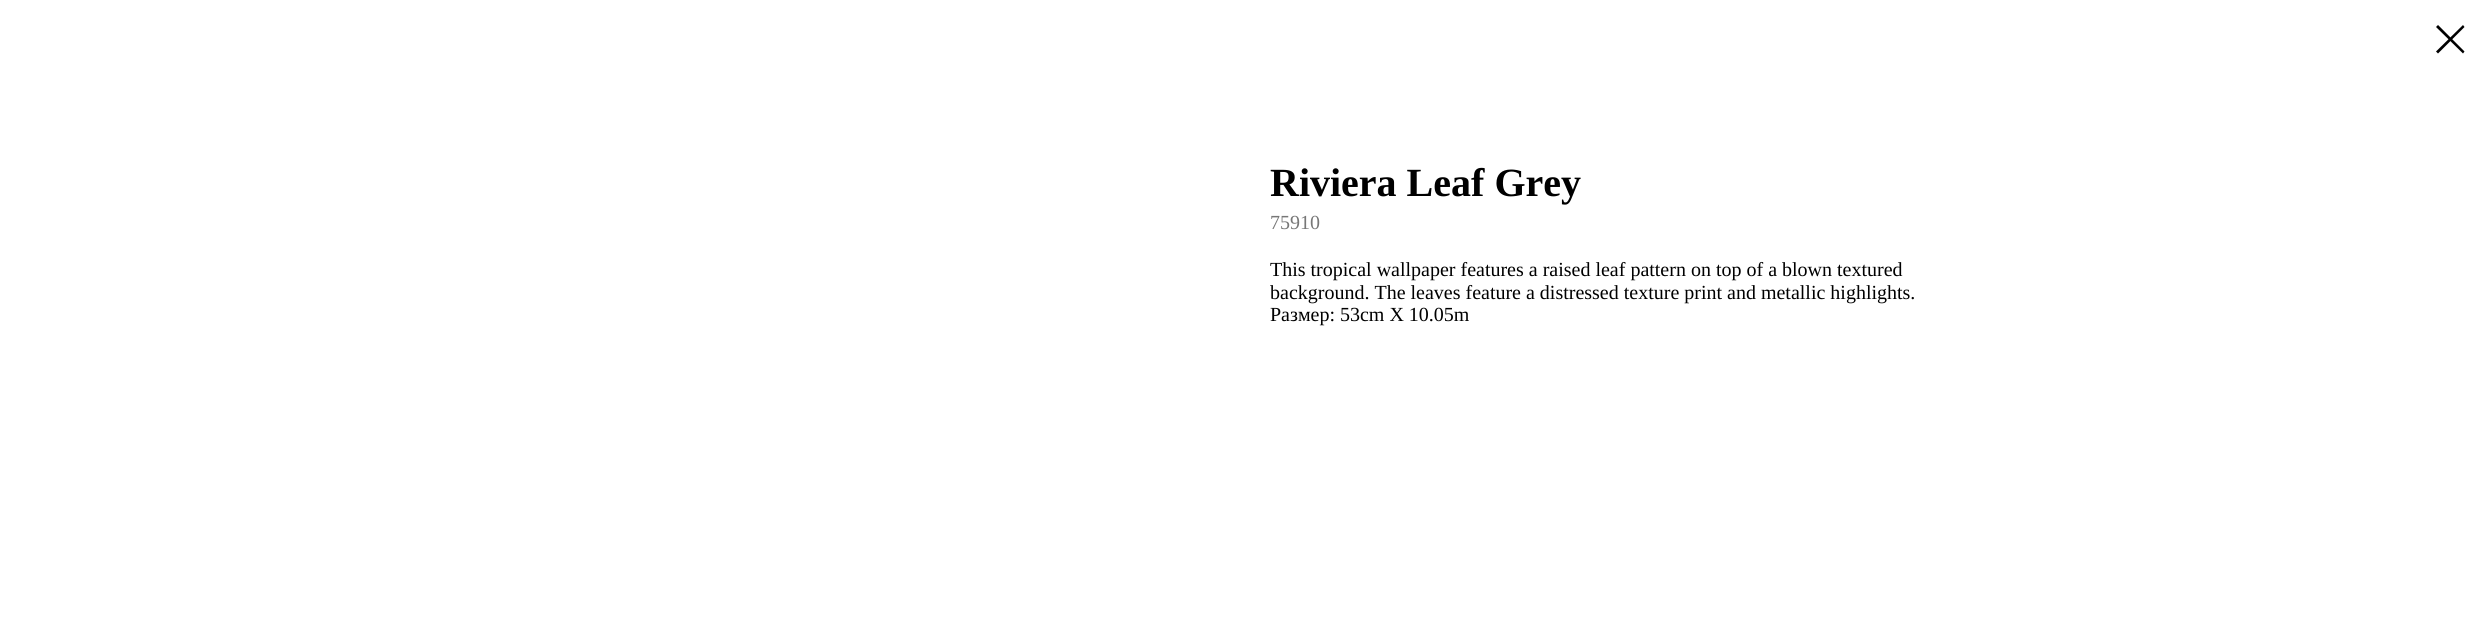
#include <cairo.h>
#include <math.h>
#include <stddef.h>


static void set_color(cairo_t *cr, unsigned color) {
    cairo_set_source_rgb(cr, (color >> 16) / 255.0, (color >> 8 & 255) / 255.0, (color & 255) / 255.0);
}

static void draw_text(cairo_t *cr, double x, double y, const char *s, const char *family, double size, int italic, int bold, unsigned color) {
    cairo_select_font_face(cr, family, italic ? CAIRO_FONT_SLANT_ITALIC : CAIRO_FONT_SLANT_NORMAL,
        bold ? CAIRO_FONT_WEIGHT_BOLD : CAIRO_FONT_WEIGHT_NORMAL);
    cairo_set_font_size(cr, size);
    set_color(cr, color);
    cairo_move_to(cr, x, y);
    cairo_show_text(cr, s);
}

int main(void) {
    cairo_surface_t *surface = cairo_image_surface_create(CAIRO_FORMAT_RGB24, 2489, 627);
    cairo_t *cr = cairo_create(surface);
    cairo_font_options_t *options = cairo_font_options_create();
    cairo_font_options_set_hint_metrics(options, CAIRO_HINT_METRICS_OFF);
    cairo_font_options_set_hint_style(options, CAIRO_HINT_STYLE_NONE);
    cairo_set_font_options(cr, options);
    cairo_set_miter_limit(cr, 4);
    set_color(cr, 0xFFFFFF);
    cairo_paint(cr);
    set_color(cr, 0x000000);
    cairo_set_fill_rule(cr, CAIRO_FILL_RULE_EVEN_ODD);
    cairo_new_path(cr);
    cairo_move_to(cr, 2436, 27);
    cairo_line_to(cr, 2438, 25);
    cairo_line_to(cr, 2464.5, 51.5);
    cairo_line_to(cr, 2463, 53.5);
    cairo_close_path(cr);
    cairo_fill(cr);
    cairo_new_path(cr);
    cairo_move_to(cr, 2463, 25);
    cairo_line_to(cr, 2464.5, 27);
    cairo_line_to(cr, 2438, 53.5);
    cairo_line_to(cr, 2436, 51.5);
    cairo_close_path(cr);
    cairo_fill(cr);
    draw_text(cr, 1270, 196, "Riviera Leaf Grey", "Liberation Serif", 40, 0, 1, 0x000000);
    draw_text(cr, 1270, 229, "75910", "Liberation Serif", 20, 0, 0, 0x777777);
    draw_text(cr, 1270, 276, "This tropical wallpaper features a raised leaf pattern on top of a blown textured", "Liberation Serif", 20, 0, 0, 0x000000);
    draw_text(cr, 1270, 299, "background. The leaves feature a distressed texture print and metallic highlights.", "Liberation Serif", 20, 0, 0, 0x000000);
    draw_text(cr, 1270, 321, "Размер: 53cm X 10.05m", "Liberation Serif", 20, 0, 0, 0x000000);
    cairo_surface_write_to_png(surface, "output.png");
    cairo_font_options_destroy(options);
    cairo_destroy(cr);
    cairo_surface_destroy(surface);
    return 0;
}
